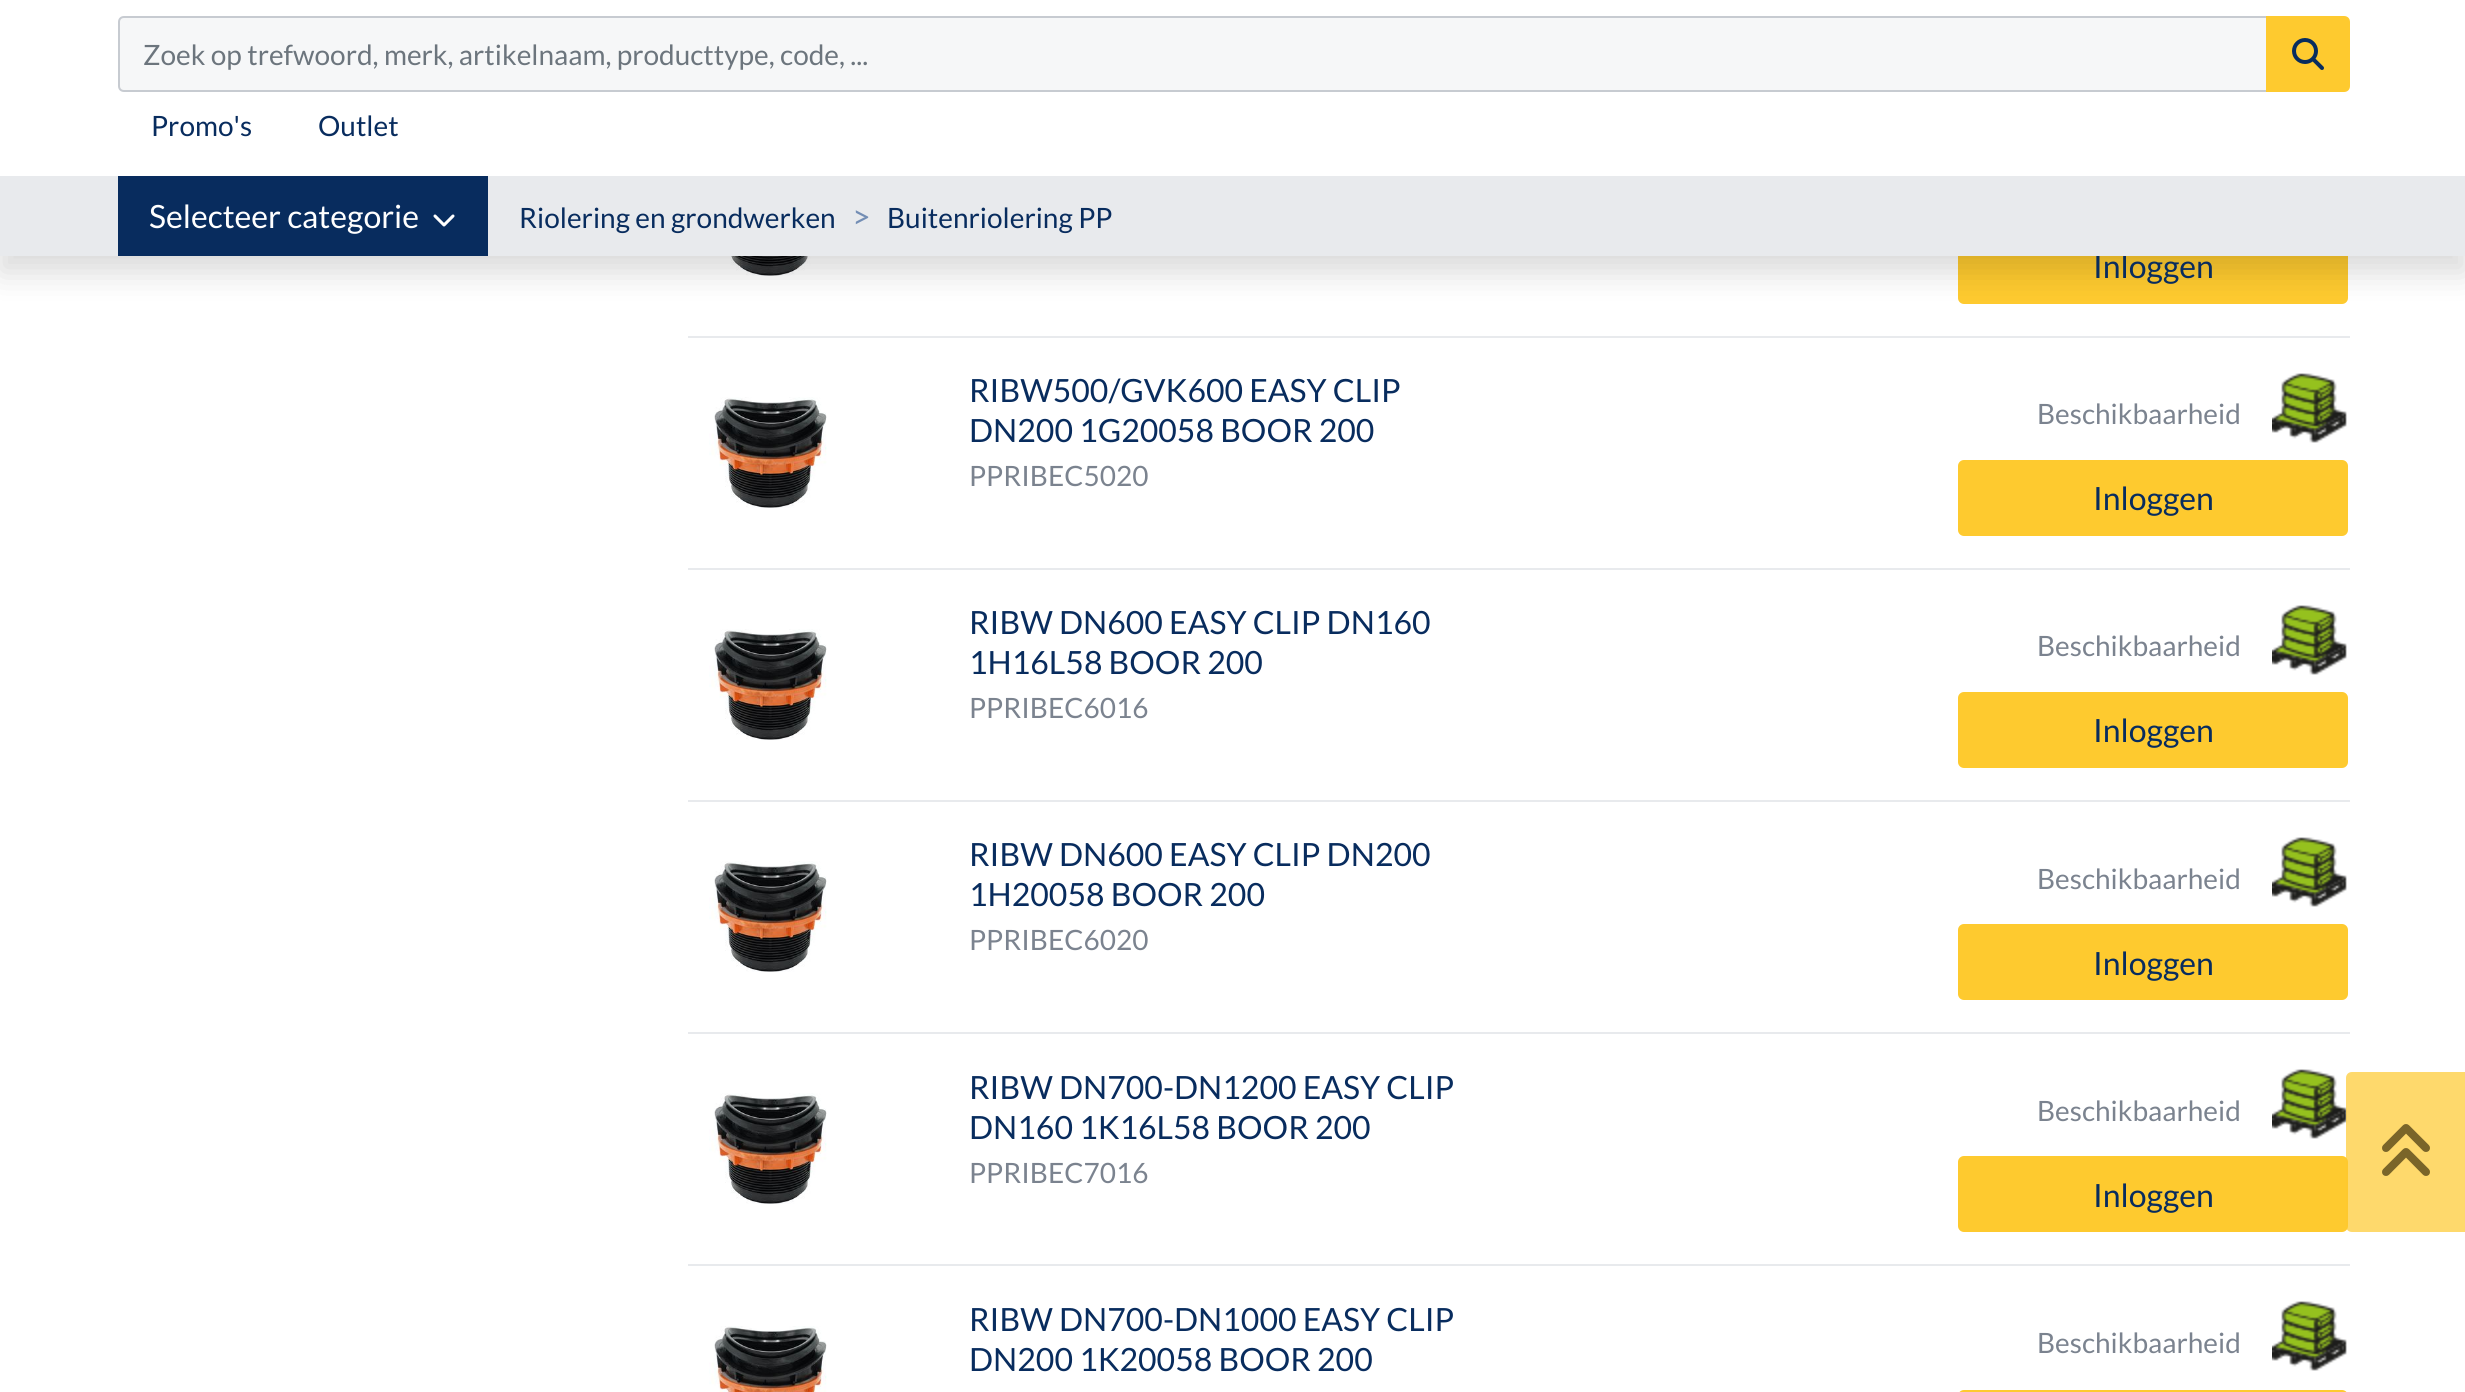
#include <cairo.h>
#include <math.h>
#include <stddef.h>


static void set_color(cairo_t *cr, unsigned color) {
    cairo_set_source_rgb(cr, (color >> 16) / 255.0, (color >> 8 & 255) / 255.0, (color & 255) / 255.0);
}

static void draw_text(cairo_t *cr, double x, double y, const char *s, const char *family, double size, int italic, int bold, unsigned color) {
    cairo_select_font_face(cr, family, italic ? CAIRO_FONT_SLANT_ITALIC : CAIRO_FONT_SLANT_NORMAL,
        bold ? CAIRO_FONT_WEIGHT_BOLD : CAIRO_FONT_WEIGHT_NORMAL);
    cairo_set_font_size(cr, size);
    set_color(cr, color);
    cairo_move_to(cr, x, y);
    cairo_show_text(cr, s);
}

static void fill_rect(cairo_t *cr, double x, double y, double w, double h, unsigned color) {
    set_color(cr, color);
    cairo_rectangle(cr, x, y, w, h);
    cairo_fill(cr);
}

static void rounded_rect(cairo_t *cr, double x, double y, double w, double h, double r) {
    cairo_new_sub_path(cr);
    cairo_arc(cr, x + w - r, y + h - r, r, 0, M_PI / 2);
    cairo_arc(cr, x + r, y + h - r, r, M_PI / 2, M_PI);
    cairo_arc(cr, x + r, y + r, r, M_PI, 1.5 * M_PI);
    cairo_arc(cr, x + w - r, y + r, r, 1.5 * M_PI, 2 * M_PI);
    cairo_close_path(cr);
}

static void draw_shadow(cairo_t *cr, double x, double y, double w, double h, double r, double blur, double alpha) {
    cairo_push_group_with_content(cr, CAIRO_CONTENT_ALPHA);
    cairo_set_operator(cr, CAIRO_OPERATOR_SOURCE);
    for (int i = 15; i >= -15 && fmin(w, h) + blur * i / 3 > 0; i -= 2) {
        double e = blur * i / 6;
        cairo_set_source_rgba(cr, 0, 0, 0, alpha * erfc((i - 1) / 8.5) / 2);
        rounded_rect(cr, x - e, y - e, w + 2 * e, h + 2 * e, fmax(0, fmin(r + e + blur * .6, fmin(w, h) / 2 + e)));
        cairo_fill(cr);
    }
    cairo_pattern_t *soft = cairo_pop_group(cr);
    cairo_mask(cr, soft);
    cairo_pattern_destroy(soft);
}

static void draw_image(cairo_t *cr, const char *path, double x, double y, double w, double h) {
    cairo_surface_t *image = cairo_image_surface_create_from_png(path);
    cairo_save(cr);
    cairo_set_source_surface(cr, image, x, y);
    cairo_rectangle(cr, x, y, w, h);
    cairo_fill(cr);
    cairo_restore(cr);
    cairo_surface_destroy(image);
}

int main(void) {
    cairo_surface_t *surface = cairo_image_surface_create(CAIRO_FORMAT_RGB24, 2465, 1392);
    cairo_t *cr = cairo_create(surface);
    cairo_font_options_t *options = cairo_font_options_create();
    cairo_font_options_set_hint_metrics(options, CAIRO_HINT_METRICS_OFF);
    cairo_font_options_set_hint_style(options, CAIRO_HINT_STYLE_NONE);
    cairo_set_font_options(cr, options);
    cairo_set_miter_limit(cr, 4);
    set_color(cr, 0xFFFFFF);
    cairo_paint(cr);
    draw_image(cr, "assets/img3.png", 709, 256, 118, 20);
    set_color(cr, 0xFECA2F);
    rounded_rect(cr, 1959, 229, 388, 74, 5);
    cairo_fill_preserve(cr);
    cairo_stroke(cr);
    set_color(cr, 0x000000);
    draw_shadow(cr, 0, 16, 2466, 256, 0, 16, 0.15);
    fill_rect(cr, 0, 0, 2465, 176, 0xFFFFFF);
    set_color(cr, 0xF6F7F8);
    cairo_new_path(cr);
    cairo_move_to(cr, 124, 17);
    cairo_line_to(cr, 2267, 17);
    cairo_line_to(cr, 2267, 91);
    cairo_line_to(cr, 124, 91);
    cairo_curve_to(cr, 121, 91, 119, 89, 119, 86);
    cairo_line_to(cr, 119, 22);
    cairo_curve_to(cr, 119, 19, 121, 17, 124, 17);
    cairo_close_path(cr);
    cairo_fill_preserve(cr);
    set_color(cr, 0xC7CBD1);
    cairo_stroke(cr);
    draw_text(cr, 143, 65, "Zoek op trefwoord, merk, artikelnaam, producttype, code, ...", "Lato", 28, 0, 0, 0x6C757D);
    set_color(cr, 0xFECA2F);
    cairo_new_path(cr);
    cairo_move_to(cr, 2267, 17);
    cairo_line_to(cr, 2344, 17);
    cairo_curve_to(cr, 2347, 17, 2349, 19, 2349, 22);
    cairo_line_to(cr, 2349, 86);
    cairo_curve_to(cr, 2349, 89, 2347, 91, 2344, 91);
    cairo_line_to(cr, 2267, 91);
    cairo_close_path(cr);
    cairo_fill_preserve(cr);
    cairo_stroke(cr);
    draw_image(cr, "assets/img1.png", 2292, 38, 32, 32);
    draw_text(cr, 151, 136, "Promo's", "Lato", 28, 0, 0, 0x082C5E);
    draw_text(cr, 318, 136, "Outlet", "Lato", 28, 0, 0, 0x082C5E);
    draw_text(cr, 2093, 278, "Inloggen", "Lato", 32, 0, 0, 0x082C5E);
    fill_rect(cr, 0, 176, 2465, 80, 0xE8EAED);
    fill_rect(cr, 118, 176, 370, 80, 0x082C5E);
    draw_text(cr, 149, 228, "Selecteer categorie", "Lato", 32, 0, 0, 0xFFFFFF);
    draw_image(cr, "assets/img2.png", 433, 214, 22, 13);
    draw_text(cr, 519, 228, "Riolering en grondwerken", "Lato", 28, 0, 0, 0x082C5E);
    draw_text(cr, 852, 228, ">", "Lato", 32, 0, 0, 0x738EB5);
    draw_text(cr, 887, 228, "Buitenriolering PP", "Lato", 28, 0, 0, 0x082C5E);
    fill_rect(cr, 688, 336, 1662, 2, 0xE8EAED);
    fill_rect(cr, 688, 568, 1662, 2, 0xE8EAED);
    draw_image(cr, "assets/img4.png", 709, 397, 118, 111);
    draw_text(cr, 969, 402, "RIBW500/GVK600 EASY CLIP", "Lato", 32, 0, 0, 0x082C5E);
    draw_text(cr, 969, 442, "DN200 1G20058 BOOR 200", "Lato", 32, 0, 0, 0x082C5E);
    draw_text(cr, 969, 486, "PPRIBEC5020", "Lato", 28, 0, 0, 0x7B838F);
    draw_text(cr, 2037, 424, "Beschikbaarheid", "Lato", 28, 0, 0, 0x7B838F);
    draw_image(cr, "assets/img5.png", 2272, 373, 75, 70);
    set_color(cr, 0xFECA2F);
    rounded_rect(cr, 1959, 461, 388, 74, 5);
    cairo_fill_preserve(cr);
    cairo_stroke(cr);
    draw_text(cr, 2093, 510, "Inloggen", "Lato", 32, 0, 0, 0x082C5E);
    fill_rect(cr, 688, 800, 1662, 2, 0xE8EAED);
    draw_image(cr, "assets/img6.png", 709, 629, 118, 111);
    draw_text(cr, 969, 634, "RIBW DN600 EASY CLIP DN160", "Lato", 32, 0, 0, 0x082C5E);
    draw_text(cr, 969, 674, "1H16L58 BOOR 200", "Lato", 32, 0, 0, 0x082C5E);
    draw_text(cr, 969, 718, "PPRIBEC6016", "Lato", 28, 0, 0, 0x7B838F);
    draw_text(cr, 2037, 656, "Beschikbaarheid", "Lato", 28, 0, 0, 0x7B838F);
    draw_image(cr, "assets/img5.png", 2272, 605, 75, 70);
    set_color(cr, 0xFECA2F);
    rounded_rect(cr, 1959, 693, 388, 74, 5);
    cairo_fill_preserve(cr);
    cairo_stroke(cr);
    draw_text(cr, 2093, 742, "Inloggen", "Lato", 32, 0, 0, 0x082C5E);
    fill_rect(cr, 688, 1032, 1662, 2, 0xE8EAED);
    draw_image(cr, "assets/img6.png", 709, 861, 118, 111);
    draw_text(cr, 969, 866, "RIBW DN600 EASY CLIP DN200", "Lato", 32, 0, 0, 0x082C5E);
    draw_text(cr, 969, 906, "1H20058 BOOR 200", "Lato", 32, 0, 0, 0x082C5E);
    draw_text(cr, 969, 950, "PPRIBEC6020", "Lato", 28, 0, 0, 0x7B838F);
    draw_text(cr, 2037, 889, "Beschikbaarheid", "Lato", 28, 0, 0, 0x7B838F);
    draw_image(cr, "assets/img5.png", 2272, 837, 75, 70);
    set_color(cr, 0xFECA2F);
    rounded_rect(cr, 1959, 925, 388, 74, 5);
    cairo_fill_preserve(cr);
    cairo_stroke(cr);
    draw_text(cr, 2093, 975, "Inloggen", "Lato", 32, 0, 0, 0x082C5E);
    fill_rect(cr, 688, 1264, 1662, 2, 0xE8EAED);
    draw_image(cr, "assets/img6.png", 709, 1093, 118, 111);
    draw_text(cr, 969, 1099, "RIBW DN700-DN1200 EASY CLIP", "Lato", 32, 0, 0, 0x082C5E);
    draw_text(cr, 969, 1139, "DN160 1K16L58 BOOR 200", "Lato", 32, 0, 0, 0x082C5E);
    draw_text(cr, 969, 1183, "PPRIBEC7016", "Lato", 28, 0, 0, 0x7B838F);
    draw_text(cr, 2037, 1121, "Beschikbaarheid", "Lato", 28, 0, 0, 0x7B838F);
    draw_image(cr, "assets/img5.png", 2272, 1069, 75, 70);
    set_color(cr, 0xFECA2F);
    rounded_rect(cr, 1959, 1157, 388, 74, 5);
    cairo_fill_preserve(cr);
    cairo_stroke(cr);
    draw_text(cr, 2093, 1207, "Inloggen", "Lato", 32, 0, 0, 0x082C5E);
    draw_image(cr, "assets/img7.png", 709, 1326, 118, 66);
    draw_text(cr, 969, 1331, "RIBW DN700-DN1000 EASY CLIP", "Lato", 32, 0, 0, 0x082C5E);
    draw_text(cr, 969, 1371, "DN200 1K20058 BOOR 200", "Lato", 32, 0, 0, 0x082C5E);
    draw_text(cr, 2037, 1353, "Beschikbaarheid", "Lato", 28, 0, 0, 0x7B838F);
    draw_image(cr, "assets/img5.png", 2272, 1301, 75, 70);
    rounded_rect(cr, 1959, 1391, 388, 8, 5);
    set_color(cr, 0xFECA2F);
    cairo_stroke(cr);
    cairo_set_source_rgba(cr, 0.996, 0.792, 0.184, 0.7);
    cairo_new_path(cr);
    cairo_move_to(cr, 2352, 1072);
    cairo_line_to(cr, 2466, 1072);
    cairo_line_to(cr, 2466, 1232);
    cairo_line_to(cr, 2352, 1232);
    cairo_curve_to(cr, 2348.5, 1232, 2346, 1229.5, 2346, 1226);
    cairo_line_to(cr, 2346, 1078);
    cairo_curve_to(cr, 2346, 1074.5, 2348.5, 1072, 2352, 1072);
    cairo_close_path(cr);
    cairo_fill(cr);
    draw_image(cr, "assets/img8.png", 2382, 1124, 48, 52);
    cairo_surface_write_to_png(surface, "output.png");
    cairo_font_options_destroy(options);
    cairo_destroy(cr);
    cairo_surface_destroy(surface);
    return 0;
}
